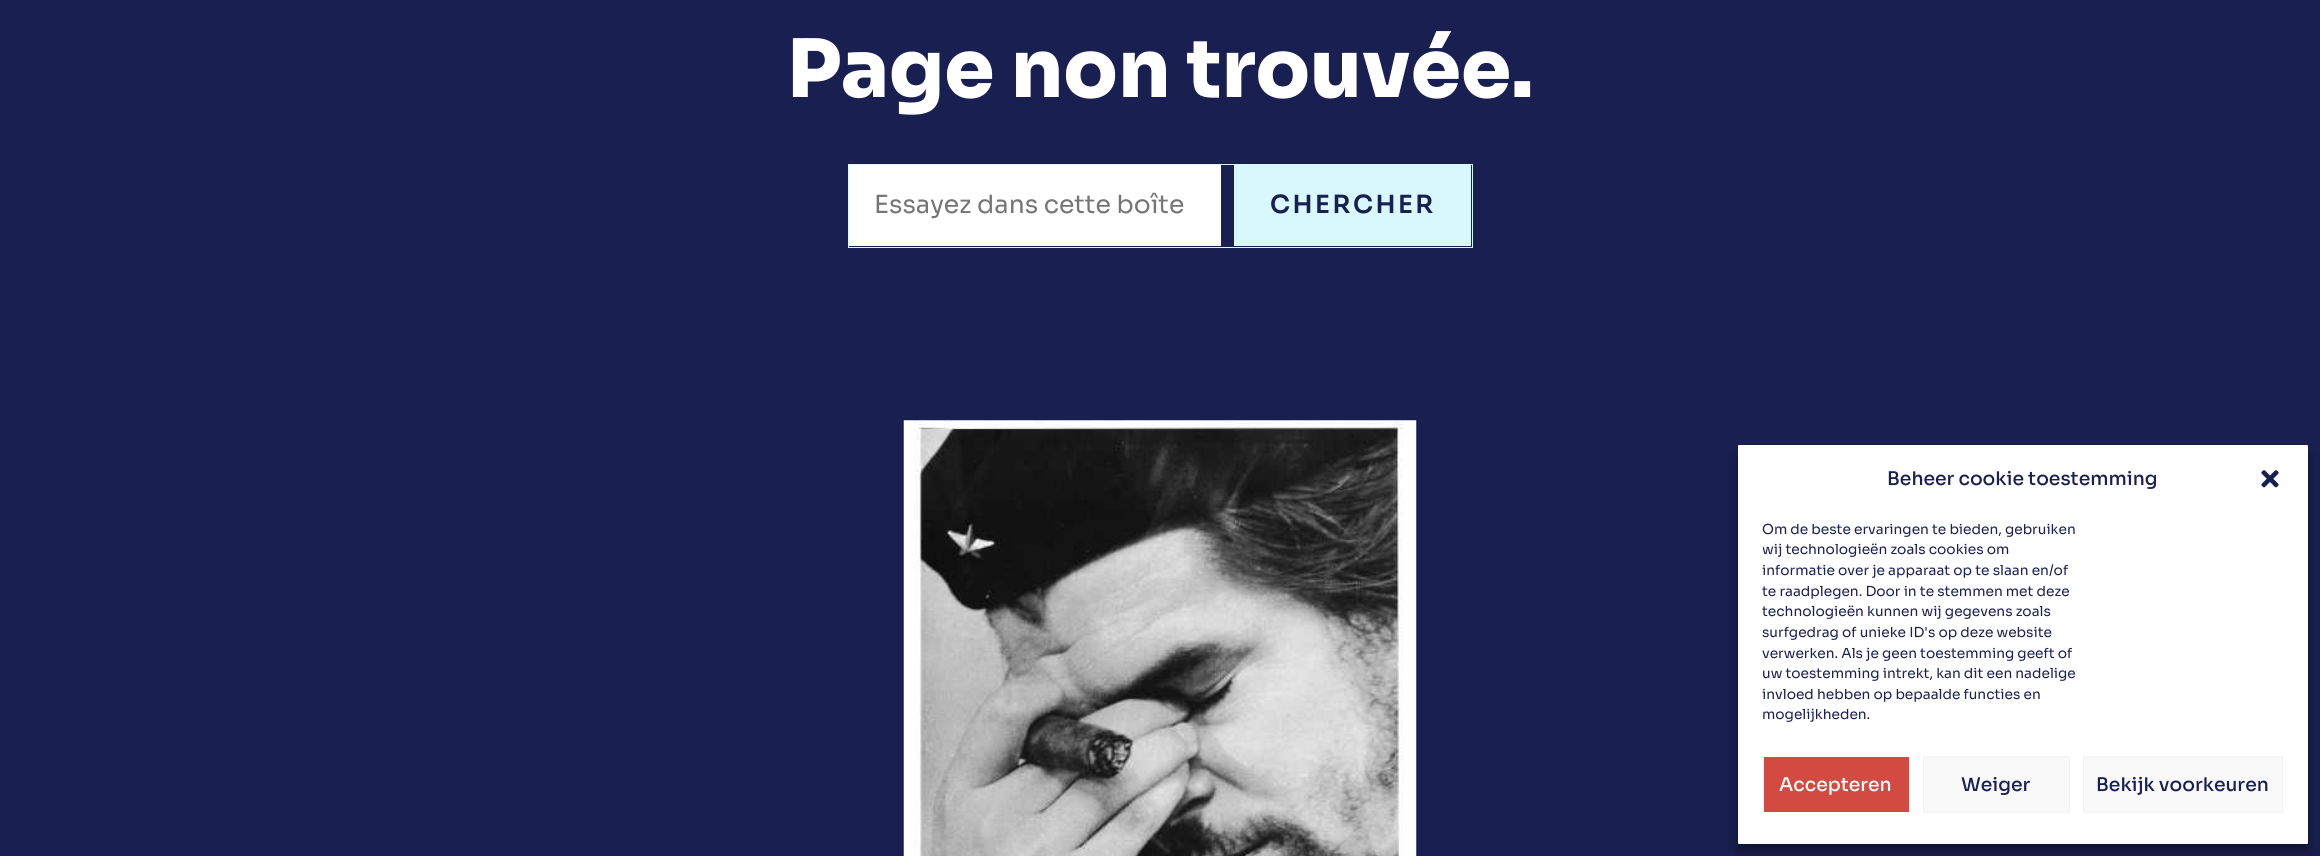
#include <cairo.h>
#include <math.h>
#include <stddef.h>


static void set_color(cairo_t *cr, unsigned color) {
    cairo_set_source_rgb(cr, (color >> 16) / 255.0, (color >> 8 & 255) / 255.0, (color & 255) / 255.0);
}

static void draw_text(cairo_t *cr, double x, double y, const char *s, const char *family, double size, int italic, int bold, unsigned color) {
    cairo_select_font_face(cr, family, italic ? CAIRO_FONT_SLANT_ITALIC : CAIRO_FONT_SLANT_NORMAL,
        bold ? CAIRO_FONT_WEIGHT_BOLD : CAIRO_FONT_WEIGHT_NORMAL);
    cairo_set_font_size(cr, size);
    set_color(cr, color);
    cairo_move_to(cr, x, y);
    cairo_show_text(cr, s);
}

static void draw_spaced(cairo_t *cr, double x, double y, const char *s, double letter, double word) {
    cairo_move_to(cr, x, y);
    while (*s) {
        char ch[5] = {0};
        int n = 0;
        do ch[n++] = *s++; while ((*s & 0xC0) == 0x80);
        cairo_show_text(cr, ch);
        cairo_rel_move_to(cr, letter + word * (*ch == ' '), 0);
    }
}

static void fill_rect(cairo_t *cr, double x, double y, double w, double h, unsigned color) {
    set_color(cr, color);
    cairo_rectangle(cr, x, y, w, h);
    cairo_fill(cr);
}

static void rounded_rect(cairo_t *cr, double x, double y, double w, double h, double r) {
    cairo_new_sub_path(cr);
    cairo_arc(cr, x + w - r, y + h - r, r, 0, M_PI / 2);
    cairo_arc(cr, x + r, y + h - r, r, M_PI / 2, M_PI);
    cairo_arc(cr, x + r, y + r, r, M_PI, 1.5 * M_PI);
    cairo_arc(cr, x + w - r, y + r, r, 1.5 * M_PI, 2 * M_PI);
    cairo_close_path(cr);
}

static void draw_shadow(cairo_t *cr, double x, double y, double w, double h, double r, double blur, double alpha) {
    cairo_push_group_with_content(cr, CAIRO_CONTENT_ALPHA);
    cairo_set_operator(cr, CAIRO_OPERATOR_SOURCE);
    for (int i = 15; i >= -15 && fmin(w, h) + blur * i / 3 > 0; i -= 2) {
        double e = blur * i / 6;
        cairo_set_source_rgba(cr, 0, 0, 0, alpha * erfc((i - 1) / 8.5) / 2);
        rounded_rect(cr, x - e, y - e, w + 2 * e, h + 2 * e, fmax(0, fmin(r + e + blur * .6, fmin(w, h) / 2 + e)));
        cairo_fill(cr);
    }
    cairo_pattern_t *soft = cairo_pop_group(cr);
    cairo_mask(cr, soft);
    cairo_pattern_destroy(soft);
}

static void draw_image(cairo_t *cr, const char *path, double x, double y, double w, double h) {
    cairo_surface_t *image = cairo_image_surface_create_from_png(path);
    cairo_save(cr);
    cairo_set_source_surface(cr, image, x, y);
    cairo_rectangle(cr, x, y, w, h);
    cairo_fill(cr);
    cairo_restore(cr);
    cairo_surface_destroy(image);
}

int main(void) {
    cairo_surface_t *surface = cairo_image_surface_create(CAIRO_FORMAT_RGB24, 2320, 856);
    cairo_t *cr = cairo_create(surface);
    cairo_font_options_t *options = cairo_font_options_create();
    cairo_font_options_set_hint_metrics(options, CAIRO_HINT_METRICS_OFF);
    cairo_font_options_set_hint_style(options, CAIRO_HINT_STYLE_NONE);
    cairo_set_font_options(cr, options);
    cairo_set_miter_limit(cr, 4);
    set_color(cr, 0x191F51);
    cairo_paint(cr);
    draw_text(cr, 787, 97, "Page non trouvée.", "Sora ExtraBold", 80, 0, 0, 0xFFFFFF);
    cairo_rectangle(cr, 848.5, 164.5, 624, 83);
    set_color(cr, 0xD9F8FE);
    cairo_set_line_width(cr, 1);
    cairo_stroke(cr);
    fill_rect(cr, 849, 165, 372, 81, 0xFFFFFF);
    draw_text(cr, 874, 213, "Essayez dans cette boîte", "Sora", 25, 0, 0, 0x757575);
    fill_rect(cr, 1234, 165, 237, 81, 0xD9F8FE);
    cairo_select_font_face(cr, "Sora SemiBold", CAIRO_FONT_SLANT_NORMAL, CAIRO_FONT_WEIGHT_NORMAL);
    set_color(cr, 0x191F51);
    draw_spaced(cr, 1270, 213, "CHERCHER", 2.5, 0);
    draw_image(cr, "assets/img1.png", 903, 420, 514, 436);
    set_color(cr, 0x000000);
    draw_shadow(cr, 1738, 453, 570, 398, 1, 4, 0.23);
    draw_shadow(cr, 1738, 458, 570, 398, 1, 12.5, 0.19);
    set_color(cr, 0xFFFFFF);
    rounded_rect(cr, 1738, 445, 570, 399, 1);
    cairo_fill(cr);
    draw_text(cr, 1887, 485, "Beheer cookie toestemming", "Sora Medium", 18.75, 0, 0, 0x191F51);
    draw_image(cr, "assets/img2.png", 2261, 470, 18, 18);
    draw_text(cr, 1762, 534, "Om de beste ervaringen te bieden, gebruiken", "Sora", 13.75, 0, 0, 0x191F51);
    cairo_save(cr);
    cairo_rectangle(cr, 1763, 519, 520, 212);
    cairo_clip(cr);
    draw_text(cr, 1762, 554, "wij technologieën zoals cookies om", "Sora", 13.75, 0, 0, 0x191F51);
    cairo_restore(cr);
    draw_text(cr, 1762, 575, "informatie over je apparaat op te slaan en/of", "Sora", 13.75, 0, 0, 0x191F51);
    draw_text(cr, 1762, 596, "te raadplegen. Door in te stemmen met deze", "Sora", 13.75, 0, 0, 0x191F51);
    draw_text(cr, 1762, 616, "technologieën kunnen wij gegevens zoals", "Sora", 13.75, 0, 0, 0x191F51);
    draw_text(cr, 1762, 637, "surfgedrag of unieke ID's op deze website", "Sora", 13.75, 0, 0, 0x191F51);
    draw_text(cr, 1762, 658, "verwerken. Als je geen toestemming geeft of", "Sora", 13.75, 0, 0, 0x191F51);
    draw_text(cr, 1762, 678, "uw toestemming intrekt, kan dit een nadelige", "Sora", 13.75, 0, 0, 0x191F51);
    draw_text(cr, 1762, 699, "invloed hebben op bepaalde functies en", "Sora", 13.75, 0, 0, 0x191F51);
    draw_text(cr, 1762, 719, "mogelijkheden.", "Sora", 13.75, 0, 0, 0x191F51);
    set_color(cr, 0xD24A41);
    rounded_rect(cr, 1763.5, 756.5, 146, 56, 0.5);
    cairo_fill_preserve(cr);
    set_color(cr, 0xFFFFFF);
    cairo_stroke(cr);
    draw_text(cr, 1779, 791, "Accepteren", "Sora Medium", 18.75, 0, 0, 0xFFFFFF);
    set_color(cr, 0xF9F9F9);
    rounded_rect(cr, 1923.5, 756.5, 146, 56, 0.5);
    cairo_fill_preserve(cr);
    set_color(cr, 0xF2F2F2);
    cairo_stroke(cr);
    draw_text(cr, 1961, 791, "Weiger", "Sora Medium", 18.75, 0, 0, 0x191F51);
    set_color(cr, 0xF9F9F9);
    rounded_rect(cr, 2083.5, 756.5, 199, 56, 0.5);
    cairo_fill_preserve(cr);
    set_color(cr, 0xF2F2F2);
    cairo_stroke(cr);
    draw_text(cr, 2096, 791, "Bekijk voorkeuren", "Sora Medium", 18.75, 0, 0, 0x191F51);
    cairo_surface_write_to_png(surface, "output.png");
    cairo_font_options_destroy(options);
    cairo_destroy(cr);
    cairo_surface_destroy(surface);
    return 0;
}
